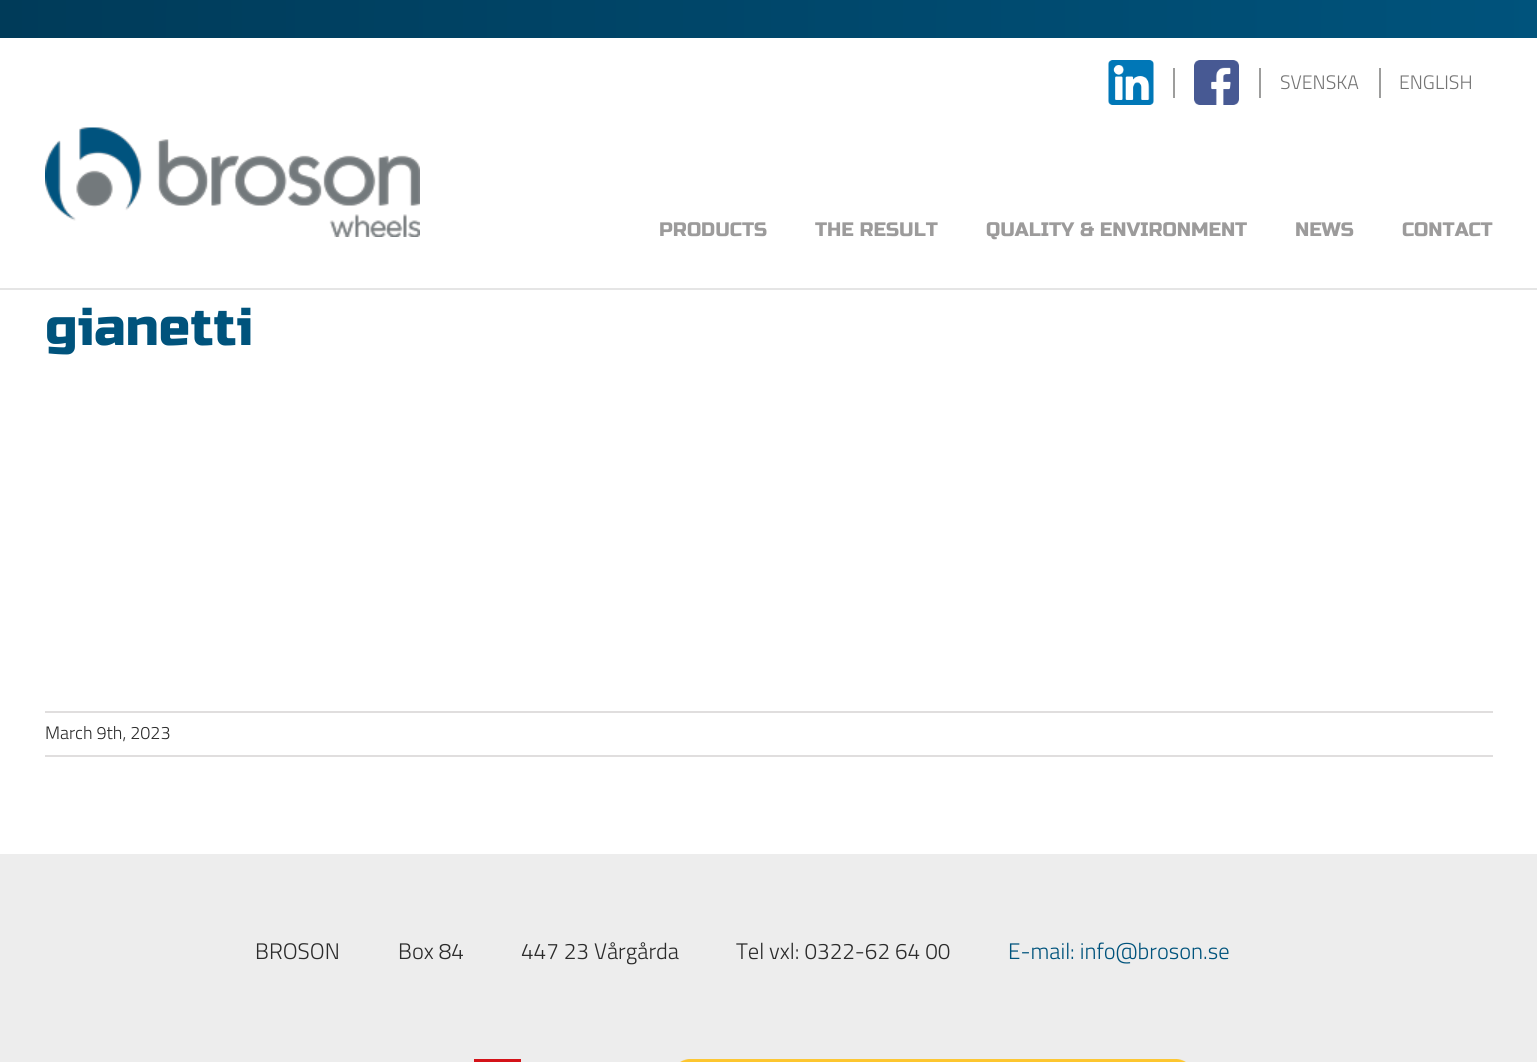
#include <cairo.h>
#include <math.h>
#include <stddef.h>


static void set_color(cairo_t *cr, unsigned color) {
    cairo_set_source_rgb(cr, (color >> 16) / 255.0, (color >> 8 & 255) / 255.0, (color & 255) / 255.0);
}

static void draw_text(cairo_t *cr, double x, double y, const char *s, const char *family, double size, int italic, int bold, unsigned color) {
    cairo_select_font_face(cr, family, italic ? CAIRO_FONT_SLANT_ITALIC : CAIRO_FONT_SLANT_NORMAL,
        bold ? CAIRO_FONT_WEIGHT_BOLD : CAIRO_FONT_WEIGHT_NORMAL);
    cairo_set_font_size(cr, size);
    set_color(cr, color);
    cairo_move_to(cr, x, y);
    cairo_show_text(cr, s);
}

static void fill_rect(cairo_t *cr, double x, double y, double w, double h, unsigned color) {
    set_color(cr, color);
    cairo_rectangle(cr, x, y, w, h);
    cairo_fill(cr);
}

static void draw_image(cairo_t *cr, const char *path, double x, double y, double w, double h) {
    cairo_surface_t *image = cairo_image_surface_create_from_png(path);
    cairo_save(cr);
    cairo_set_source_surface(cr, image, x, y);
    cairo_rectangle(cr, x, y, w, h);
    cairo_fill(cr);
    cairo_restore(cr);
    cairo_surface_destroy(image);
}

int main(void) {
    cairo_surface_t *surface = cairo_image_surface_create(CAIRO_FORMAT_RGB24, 1537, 1062);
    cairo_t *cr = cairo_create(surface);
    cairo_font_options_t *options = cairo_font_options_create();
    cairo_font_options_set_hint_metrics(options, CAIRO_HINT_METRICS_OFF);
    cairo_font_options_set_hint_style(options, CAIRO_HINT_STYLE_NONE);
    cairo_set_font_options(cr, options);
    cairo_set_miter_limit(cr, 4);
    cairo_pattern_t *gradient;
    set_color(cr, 0xFFFFFF);
    cairo_paint(cr);
    gradient = cairo_pattern_create_linear(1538, 164, 0, 163);
    cairo_pattern_add_color_stop_rgba(gradient, 0, 0, 0.325, 0.486, 1);
    cairo_pattern_add_color_stop_rgba(gradient, 1, 0, 0.231, 0.349, 1);
    cairo_set_source(cr, gradient);
    cairo_pattern_destroy(gradient);
    cairo_rectangle(cr, 0, 0, 1537, 38);
    cairo_fill(cr);
    draw_image(cr, "assets/img1.png", 1108, 60, 46, 45);
    fill_rect(cr, 1173, 68, 2, 30, 0x9D9D9C);
    draw_image(cr, "assets/img2.png", 1194, 60, 45, 45);
    fill_rect(cr, 1259, 68, 2, 30, 0x9D9D9C);
    draw_text(cr, 1280, 89, "SVENSKA", "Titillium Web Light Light", 19.5, 0, 0, 0x747474);
    fill_rect(cr, 1379, 68, 2, 30, 0x9D9D9C);
    draw_text(cr, 1399, 89, "ENGLISH", "Titillium Web Light Light", 19.5, 0, 0, 0x747474);
    fill_rect(cr, 0, 288, 1537, 2, 0xE5E5E5);
    draw_image(cr, "assets/img3.png", 45, 127, 375, 110);
    draw_text(cr, 659, 236, "PRODUCTS", "Russo One", 19.5, 0, 0, 0x9C9B9B);
    draw_text(cr, 815, 236, "THE RESULT", "Russo One", 19.5, 0, 0, 0x9C9B9B);
    draw_text(cr, 986, 236, "QUALITY & ENVIRONMENT", "Russo One", 19.5, 0, 0, 0x9C9B9B);
    draw_text(cr, 1295, 236, "NEWS", "Russo One", 19.5, 0, 0, 0x9C9B9B);
    draw_text(cr, 1402, 236, "CONTACT", "Russo One", 19.5, 0, 0, 0x9C9B9B);
    draw_text(cr, 45, 345, "gianetti", "Russo One", 52.5, 0, 0, 0x00537C);
    fill_rect(cr, 45, 711, 1448, 2, 0xE0DEDE);
    fill_rect(cr, 45, 755, 1448, 2, 0xE0DEDE);
    draw_text(cr, 45, 739, "March 9th, 2023", "Titillium Web Light Light", 18, 0, 0, 0x2B2B2B);
    fill_rect(cr, 0, 854, 1537, 208, 0xEDEDED);
    draw_text(cr, 255, 959, "BROSON", "Titillium Web Light Light", 22.5, 0, 0, 0x2B2B2B);
    draw_text(cr, 398, 959, "Box 84", "Titillium Web Light Light", 22.5, 0, 0, 0x2B2B2B);
    draw_text(cr, 521, 959, "447 23 Vårgårda", "Titillium Web Light Light", 22.5, 0, 0, 0x2B2B2B);
    draw_text(cr, 736, 959, "Tel vxl: 0322-62 64 00", "Titillium Web Light Light", 22.5, 0, 0, 0x2B2B2B);
    draw_text(cr, 1008, 959, "E-mail: info@broson.se", "Titillium Web Light Light", 22.5, 0, 0, 0x00537C);
    fill_rect(cr, 474, 1059, 47, 3, 0xD41319);
    draw_image(cr, "assets/img4.png", 680, 1059, 506, 3);
    cairo_surface_write_to_png(surface, "output.png");
    cairo_font_options_destroy(options);
    cairo_destroy(cr);
    cairo_surface_destroy(surface);
    return 0;
}
